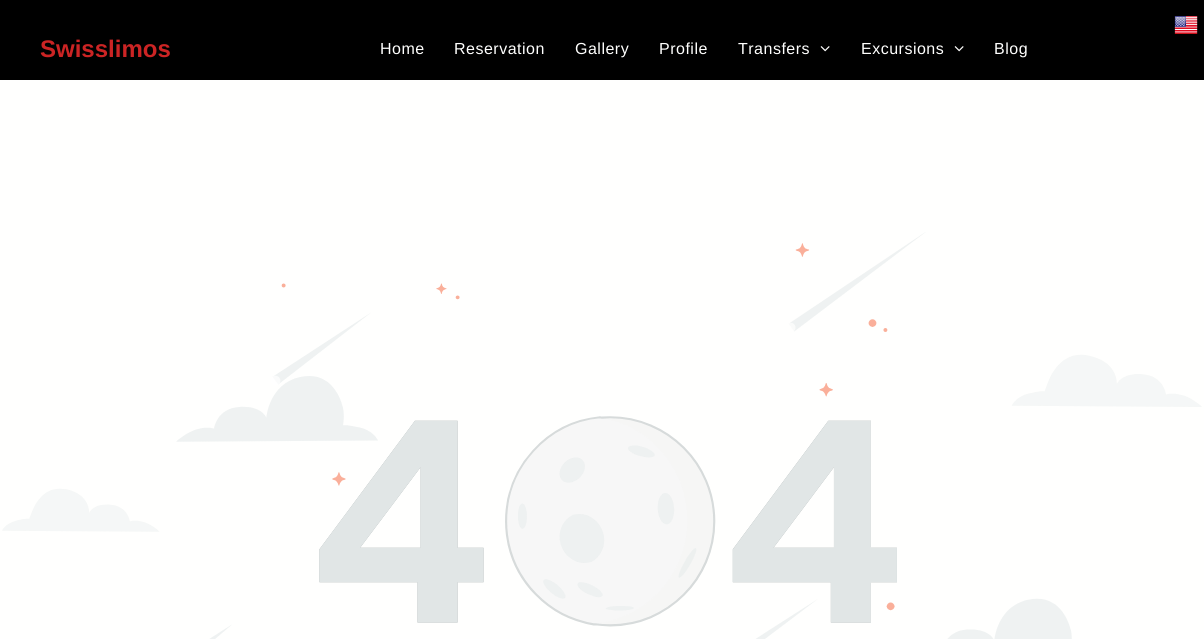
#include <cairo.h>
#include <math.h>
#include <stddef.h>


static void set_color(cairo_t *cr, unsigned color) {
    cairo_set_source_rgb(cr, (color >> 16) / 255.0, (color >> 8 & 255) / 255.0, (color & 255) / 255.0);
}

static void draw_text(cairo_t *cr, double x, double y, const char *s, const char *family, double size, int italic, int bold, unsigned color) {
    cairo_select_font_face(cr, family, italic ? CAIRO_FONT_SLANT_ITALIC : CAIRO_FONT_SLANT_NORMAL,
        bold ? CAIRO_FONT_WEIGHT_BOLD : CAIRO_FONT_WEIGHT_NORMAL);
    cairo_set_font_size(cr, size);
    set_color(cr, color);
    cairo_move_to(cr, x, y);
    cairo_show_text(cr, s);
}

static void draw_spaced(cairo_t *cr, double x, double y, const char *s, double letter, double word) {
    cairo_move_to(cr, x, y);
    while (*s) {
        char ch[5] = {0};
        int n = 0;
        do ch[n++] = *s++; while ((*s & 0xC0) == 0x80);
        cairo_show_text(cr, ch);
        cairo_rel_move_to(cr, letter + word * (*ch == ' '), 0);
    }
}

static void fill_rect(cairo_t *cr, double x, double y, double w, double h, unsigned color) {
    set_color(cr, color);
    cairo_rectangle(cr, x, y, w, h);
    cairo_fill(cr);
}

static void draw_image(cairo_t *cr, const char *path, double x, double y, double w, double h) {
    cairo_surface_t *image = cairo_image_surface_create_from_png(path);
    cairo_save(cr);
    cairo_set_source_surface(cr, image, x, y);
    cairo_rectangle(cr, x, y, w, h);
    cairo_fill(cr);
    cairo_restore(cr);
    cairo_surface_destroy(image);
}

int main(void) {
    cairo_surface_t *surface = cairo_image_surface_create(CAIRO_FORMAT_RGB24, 1204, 639);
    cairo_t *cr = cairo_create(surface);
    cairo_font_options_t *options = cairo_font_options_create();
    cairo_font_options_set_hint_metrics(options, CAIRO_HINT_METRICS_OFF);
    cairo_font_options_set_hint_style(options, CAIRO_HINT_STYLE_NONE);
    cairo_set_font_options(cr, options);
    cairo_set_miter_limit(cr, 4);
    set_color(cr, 0xFFFFFE);
    cairo_paint(cr);
    fill_rect(cr, 0, 0, 1204, 80, 0x000000);
    draw_image(cr, "assets/img1.png", 1174, 16, 24, 18);
    draw_text(cr, 40, 57, "Swisslimos", "Liberation Sans", 24, 0, 1, 0xCC2424);
    cairo_select_font_face(cr, "Liberation Sans", CAIRO_FONT_SLANT_NORMAL, CAIRO_FONT_WEIGHT_NORMAL);
    cairo_set_font_size(cr, 16);
    set_color(cr, 0xFFFFFE);
    draw_spaced(cr, 380, 54, "Home", 0.5, 0);
    draw_spaced(cr, 454, 54, "Reservation", 0.5, 0);
    draw_spaced(cr, 575, 54, "Gallery", 0.5, 0);
    draw_spaced(cr, 659, 54, "Profile", 0.5, 0);
    draw_spaced(cr, 738, 54, "Transfers", 0.5, 0);
    draw_image(cr, "assets/img2.png", 820, 46, 10, 6);
    draw_spaced(cr, 861, 54, "Excursions", 0.5, 0);
    draw_image(cr, "assets/img2.png", 954, 46, 10, 6);
    draw_spaced(cr, 994, 54, "Blog", 0.5, 0);
    draw_image(cr, "assets/img3.png", 2, 232, 1200, 407);
    cairo_surface_write_to_png(surface, "output.png");
    cairo_font_options_destroy(options);
    cairo_destroy(cr);
    cairo_surface_destroy(surface);
    return 0;
}
